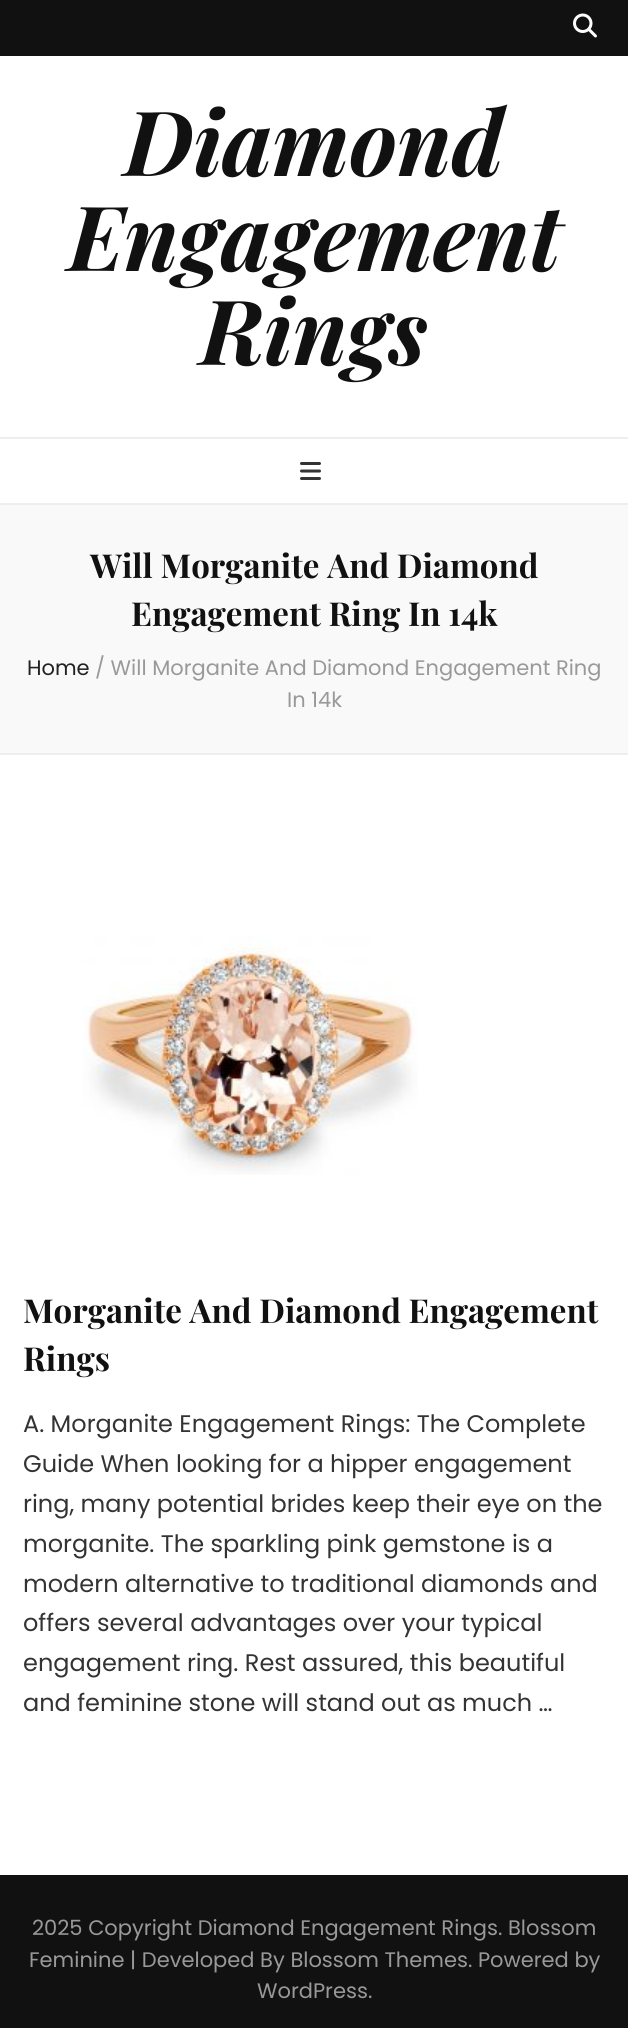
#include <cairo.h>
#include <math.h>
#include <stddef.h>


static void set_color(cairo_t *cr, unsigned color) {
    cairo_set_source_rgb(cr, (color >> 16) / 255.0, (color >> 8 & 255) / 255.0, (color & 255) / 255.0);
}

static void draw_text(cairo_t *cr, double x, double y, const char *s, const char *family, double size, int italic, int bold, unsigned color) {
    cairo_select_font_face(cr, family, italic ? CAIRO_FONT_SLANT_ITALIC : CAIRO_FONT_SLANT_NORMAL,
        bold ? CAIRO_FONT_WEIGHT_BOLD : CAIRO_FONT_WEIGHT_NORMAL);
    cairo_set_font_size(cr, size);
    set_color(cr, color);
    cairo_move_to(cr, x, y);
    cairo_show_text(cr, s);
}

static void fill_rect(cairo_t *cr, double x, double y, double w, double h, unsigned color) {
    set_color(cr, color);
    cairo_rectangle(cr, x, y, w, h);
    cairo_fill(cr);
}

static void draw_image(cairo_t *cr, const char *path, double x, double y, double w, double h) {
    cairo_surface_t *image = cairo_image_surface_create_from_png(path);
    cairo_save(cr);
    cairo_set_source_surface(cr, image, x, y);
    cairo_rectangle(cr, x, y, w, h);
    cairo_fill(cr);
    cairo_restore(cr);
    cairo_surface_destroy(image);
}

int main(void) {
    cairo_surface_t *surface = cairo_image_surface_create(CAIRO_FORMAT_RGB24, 628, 2028);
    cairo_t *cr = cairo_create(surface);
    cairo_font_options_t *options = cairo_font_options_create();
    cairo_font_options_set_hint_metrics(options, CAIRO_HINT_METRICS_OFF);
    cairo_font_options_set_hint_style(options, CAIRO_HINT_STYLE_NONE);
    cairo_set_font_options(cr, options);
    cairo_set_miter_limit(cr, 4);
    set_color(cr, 0xFFFFFF);
    cairo_paint(cr);
    fill_rect(cr, 0, 0, 628, 56, 0x111111);
    draw_image(cr, "assets/img1.png", 573, 13, 24, 25);
    draw_text(cr, 124, 176, "Diamond", "Playfair Display", 90, 1, 1, 0x111111);
    draw_text(cr, 68, 271, "Engagement", "Playfair Display", 90, 1, 1, 0x111111);
    draw_text(cr, 200, 365, "Rings", "Playfair Display", 90, 1, 1, 0x111111);
    fill_rect(cr, 0, 437, 628, 2, 0xEEEEEE);
    fill_rect(cr, 0, 503, 628, 2, 0xEEEEEE);
    draw_image(cr, "assets/img2.png", 300, 462, 21, 18);
    fill_rect(cr, 0, 505, 628, 248, 0xF9F9F9);
    fill_rect(cr, 0, 753, 628, 2, 0xEEEEEE);
    draw_text(cr, 90, 578, "Will Morganite And Diamond", "Playfair Display", 33, 0, 1, 0x111111);
    draw_text(cr, 131, 626, "Engagement Ring In 14k", "Playfair Display", 33, 0, 1, 0x111111);
    draw_text(cr, 27, 675, "Home", "Poppins", 21, 0, 0, 0x222222);
    draw_text(cr, 95, 675, "/ Will Morganite And Diamond Engagement Ring", "Poppins", 21, 0, 0, 0x999999);
    draw_text(cr, 287, 707, "In 14k", "Poppins", 21, 0, 0, 0x999999);
    draw_image(cr, "assets/img3.png", 83, 936, 335, 239);
    draw_text(cr, 23, 1323, "Morganite And Diamond Engagement", "Playfair Display", 33, 0, 1, 0x111111);
    draw_text(cr, 23, 1371, "Rings", "Playfair Display", 33, 0, 1, 0x111111);
    draw_text(cr, 23, 1432, "A. Morganite Engagement Rings: The Complete", "Poppins", 24, 0, 0, 0x333333);
    draw_text(cr, 23, 1472, "Guide When looking for a hipper engagement", "Poppins", 24, 0, 0, 0x333333);
    draw_text(cr, 23, 1512, "ring, many potential brides keep their eye on the", "Poppins", 24, 0, 0, 0x333333);
    draw_text(cr, 23, 1552, "morganite. The sparkling pink gemstone is a", "Poppins", 24, 0, 0, 0x333333);
    draw_text(cr, 23, 1592, "modern alternative to traditional diamonds and", "Poppins", 24, 0, 0, 0x333333);
    draw_text(cr, 23, 1631, "offers several advantages over your typical", "Poppins", 24, 0, 0, 0x333333);
    draw_text(cr, 23, 1671, "engagement ring. Rest assured, this beautiful", "Poppins", 24, 0, 0, 0x333333);
    draw_text(cr, 23, 1711, "and feminine stone will stand out as much …", "Poppins", 24, 0, 0, 0x333333);
    fill_rect(cr, 0, 1875, 628, 153, 0x111111);
    draw_text(cr, 32, 1935, "2025 Copyright Diamond Engagement Rings. Blossom", "Poppins", 21, 0, 0, 0x999999);
    draw_text(cr, 29, 1967, "Feminine | Developed By Blossom Themes. Powered by", "Poppins", 21, 0, 0, 0x999999);
    draw_text(cr, 257, 1998, "WordPress.", "Poppins", 21, 0, 0, 0x999999);
    cairo_surface_write_to_png(surface, "output.png");
    cairo_font_options_destroy(options);
    cairo_destroy(cr);
    cairo_surface_destroy(surface);
    return 0;
}
